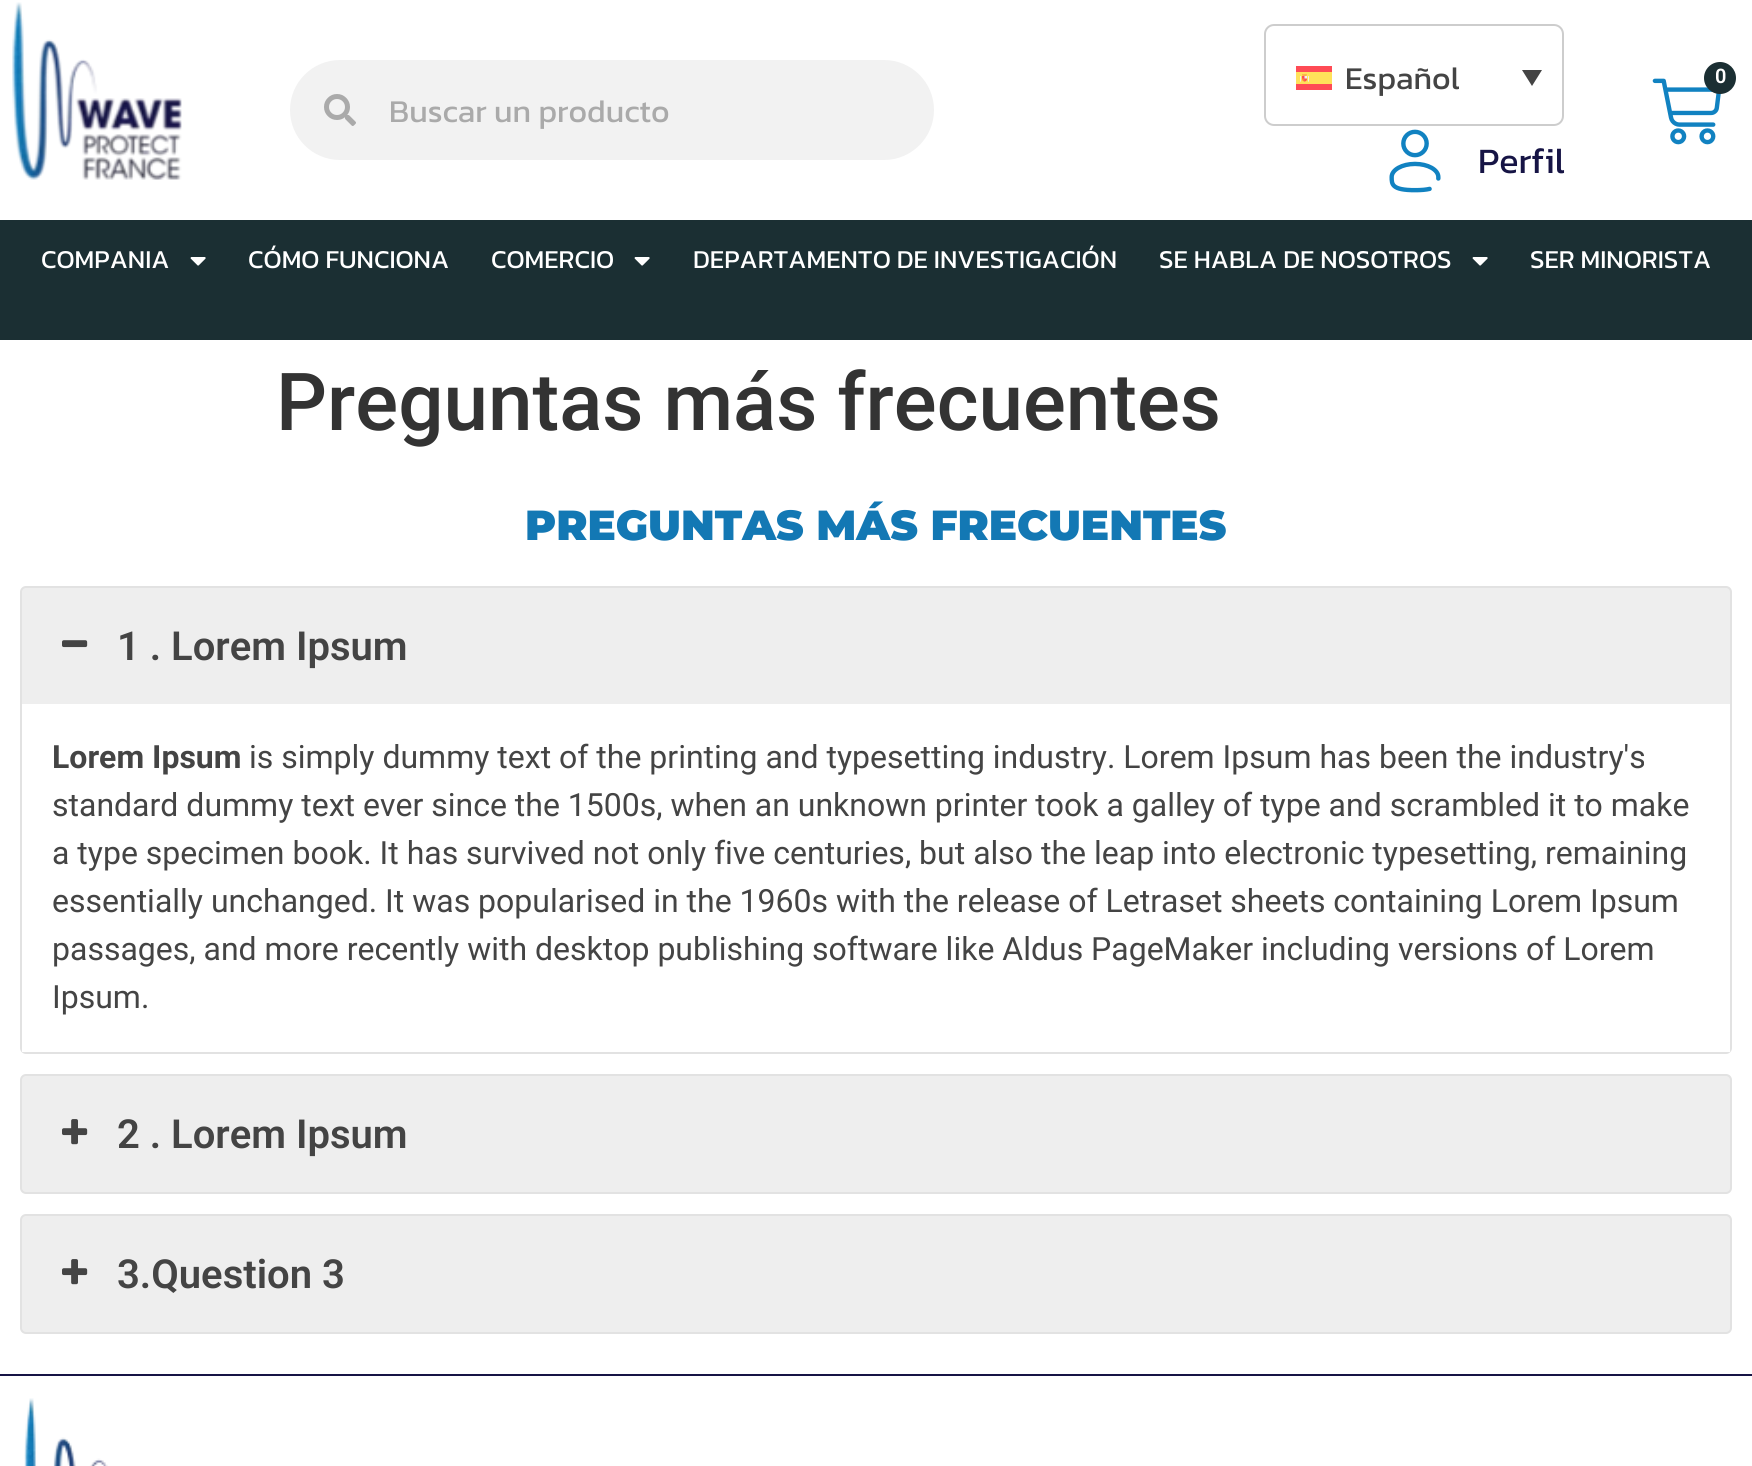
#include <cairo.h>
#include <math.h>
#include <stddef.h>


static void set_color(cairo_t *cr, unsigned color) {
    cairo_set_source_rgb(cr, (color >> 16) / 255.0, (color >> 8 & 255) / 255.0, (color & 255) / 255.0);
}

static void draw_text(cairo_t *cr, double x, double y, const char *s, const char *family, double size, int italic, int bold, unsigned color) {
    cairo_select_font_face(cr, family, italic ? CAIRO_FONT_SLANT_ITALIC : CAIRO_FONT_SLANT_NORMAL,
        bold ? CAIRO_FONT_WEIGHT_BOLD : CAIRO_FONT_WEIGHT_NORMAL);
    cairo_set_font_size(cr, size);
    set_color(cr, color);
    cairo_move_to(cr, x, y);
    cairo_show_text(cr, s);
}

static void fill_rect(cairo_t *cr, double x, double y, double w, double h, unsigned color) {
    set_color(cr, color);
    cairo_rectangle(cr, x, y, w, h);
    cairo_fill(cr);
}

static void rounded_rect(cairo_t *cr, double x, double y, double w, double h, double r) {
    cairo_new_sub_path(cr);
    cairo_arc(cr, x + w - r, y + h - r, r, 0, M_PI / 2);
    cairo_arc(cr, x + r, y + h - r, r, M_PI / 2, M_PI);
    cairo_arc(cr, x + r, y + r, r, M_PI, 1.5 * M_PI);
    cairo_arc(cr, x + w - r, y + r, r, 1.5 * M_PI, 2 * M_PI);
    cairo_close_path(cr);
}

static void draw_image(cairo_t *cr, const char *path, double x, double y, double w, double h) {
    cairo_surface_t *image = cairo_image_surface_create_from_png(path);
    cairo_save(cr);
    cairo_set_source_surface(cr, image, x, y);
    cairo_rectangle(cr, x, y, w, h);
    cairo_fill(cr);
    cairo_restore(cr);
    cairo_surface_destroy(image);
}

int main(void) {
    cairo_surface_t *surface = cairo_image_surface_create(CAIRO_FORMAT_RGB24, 1752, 1466);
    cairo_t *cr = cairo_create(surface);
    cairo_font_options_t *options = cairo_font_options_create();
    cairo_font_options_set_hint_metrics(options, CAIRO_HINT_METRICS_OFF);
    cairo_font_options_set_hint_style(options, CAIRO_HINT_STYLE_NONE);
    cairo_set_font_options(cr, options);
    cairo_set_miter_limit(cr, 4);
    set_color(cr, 0xFFFFFF);
    cairo_paint(cr);
    draw_image(cr, "assets/img1.png", 12, 2, 170, 178);
    rounded_rect(cr, 1265, 25, 298, 100, 9);
    set_color(cr, 0xCDCDCD);
    cairo_stroke(cr);
    draw_image(cr, "assets/img2.png", 1296, 66, 36, 24);
    draw_text(cr, 1345, 89, "Español", "Kanit", 32, 0, 0, 0x444444);
    cairo_new_path(cr);
    cairo_move_to(cr, 1522, 70);
    cairo_line_to(cr, 1542, 70);
    cairo_line_to(cr, 1532, 86);
    cairo_close_path(cr);
    cairo_fill(cr);
    draw_image(cr, "assets/img3.png", 1389, 129, 52, 64);
    draw_text(cr, 1478, 173, "Perfil", "Kanit", 36, 0, 0, 0x161445);
    draw_image(cr, "assets/img4.png", 1652, 78, 69, 67);
    set_color(cr, 0x1B2F33);
    cairo_arc(cr, 1720, 78, 16, 0, 2 * M_PI);
    cairo_fill(cr);
    draw_text(cr, 1715, 83, "0", "Roboto SemiBold", 20, 0, 0, 0xFFFFFF);
    set_color(cr, 0xF2F2F2);
    rounded_rect(cr, 290, 60, 644, 100, 50);
    cairo_fill(cr);
    draw_image(cr, "assets/img5.png", 324, 94, 32, 32);
    draw_text(cr, 389, 122, "Buscar un producto", "Kanit", 32, 0, 0, 0xAAAAAA);
    fill_rect(cr, 0, 220, 1752, 120, 0x1B2F33);
    draw_text(cr, 41, 268, "COMPANIA", "Kanit", 26, 0, 0, 0xFFFFFF);
    draw_image(cr, "assets/img6.png", 190, 257, 16, 9);
    draw_text(cr, 248, 268, "CÓMO FUNCIONA", "Kanit", 26, 0, 0, 0xFFFFFF);
    draw_text(cr, 491, 268, "COMERCIO", "Kanit", 26, 0, 0, 0xFFFFFF);
    draw_image(cr, "assets/img6.png", 634, 257, 16, 9);
    draw_text(cr, 693, 268, "DEPARTAMENTO DE INVESTIGACIÓN", "Kanit", 26, 0, 0, 0xFFFFFF);
    draw_text(cr, 1159, 268, "SE HABLA DE NOSOTROS", "Kanit", 26, 0, 0, 0xFFFFFF);
    draw_image(cr, "assets/img6.png", 1472, 257, 16, 9);
    draw_text(cr, 1530, 268, "SER MINORISTA", "Kanit", 26, 0, 0, 0xFFFFFF);
    draw_text(cr, 276, 430, "Preguntas más frecuentes", "Roboto Medium", 80, 0, 0, 0x333333);
    draw_text(cr, 525, 540, "PREGUNTAS MÁS FRECUENTES", "Montserrat Black", 42, 0, 0, 0x1378B4);
    set_color(cr, 0xEEEEEE);
    rounded_rect(cr, 21, 587, 1710, 466, 5);
    cairo_fill_preserve(cr);
    set_color(cr, 0xE2E2E2);
    cairo_stroke(cr);
    draw_image(cr, "assets/img7.png", 62, 640, 26, 8);
    draw_text(cr, 117, 660, "1 . Lorem Ipsum", "Roboto SemiBold", 40, 0, 0, 0x444444);
    fill_rect(cr, 22, 704, 1708, 348, 0xFFFFFF);
    draw_text(cr, 52, 768, "Lorem Ipsum", "Roboto", 32, 0, 1, 0x444444);
    draw_text(cr, 249, 768, "is simply dummy text of the printing and typesetting industry. Lorem Ipsum has been the industry's", "Roboto", 32, 0, 0, 0x444444);
    draw_text(cr, 52, 816, "standard dummy text ever since the 1500s, when an unknown printer took a galley of type and scrambled it to make", "Roboto", 32, 0, 0, 0x444444);
    draw_text(cr, 52, 864, "a type specimen book. It has survived not only five centuries, but also the leap into electronic typesetting, remaining", "Roboto", 32, 0, 0, 0x444444);
    draw_text(cr, 52, 912, "essentially unchanged. It was popularised in the 1960s with the release of Letraset sheets containing Lorem Ipsum", "Roboto", 32, 0, 0, 0x444444);
    draw_text(cr, 52, 960, "passages, and more recently with desktop publishing software like Aldus PageMaker including versions of Lorem", "Roboto", 32, 0, 0, 0x444444);
    draw_text(cr, 52, 1008, "Ipsum.", "Roboto", 32, 0, 0, 0x444444);
    set_color(cr, 0xEEEEEE);
    rounded_rect(cr, 21, 1075, 1710, 118, 5);
    cairo_fill_preserve(cr);
    set_color(cr, 0xE2E2E2);
    cairo_stroke(cr);
    draw_image(cr, "assets/img8.png", 62, 1119, 26, 26);
    draw_text(cr, 117, 1148, "2 . Lorem Ipsum", "Roboto SemiBold", 40, 0, 0, 0x444444);
    set_color(cr, 0xEEEEEE);
    rounded_rect(cr, 21, 1215, 1710, 118, 5);
    cairo_fill_preserve(cr);
    set_color(cr, 0xE2E2E2);
    cairo_stroke(cr);
    draw_image(cr, "assets/img8.png", 62, 1259, 26, 26);
    draw_text(cr, 117, 1288, "3.Question 3", "Roboto SemiBold", 40, 0, 0, 0x444444);
    fill_rect(cr, 0, 1374, 1752, 2, 0x161445);
    draw_image(cr, "assets/img9.png", 24, 1398, 84, 68);
    cairo_surface_write_to_png(surface, "output.png");
    cairo_font_options_destroy(options);
    cairo_destroy(cr);
    cairo_surface_destroy(surface);
    return 0;
}
